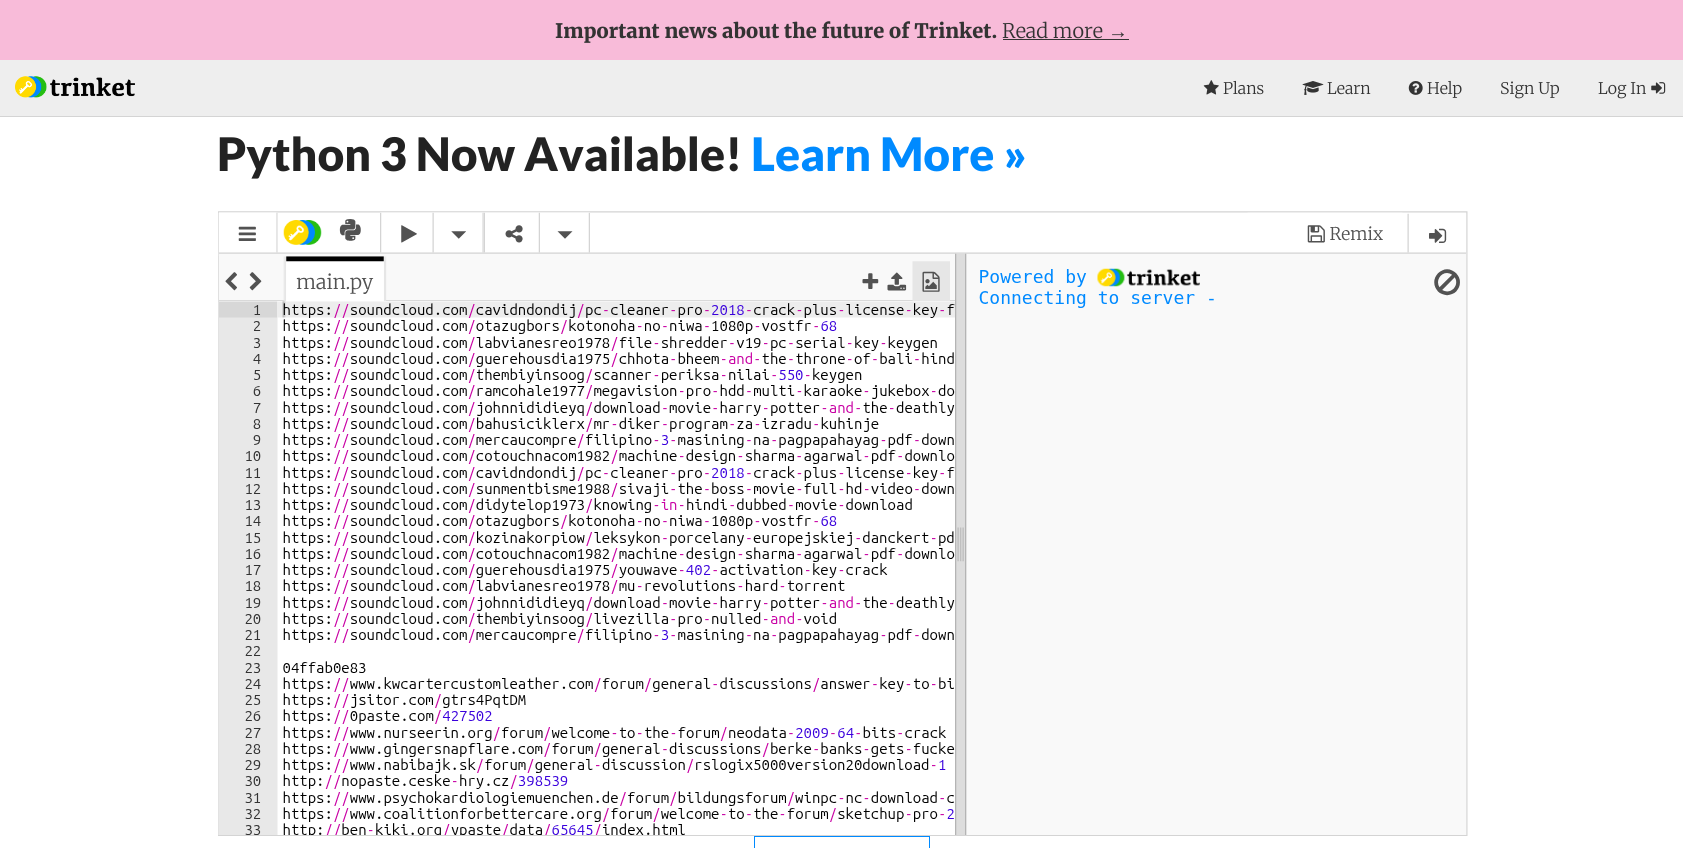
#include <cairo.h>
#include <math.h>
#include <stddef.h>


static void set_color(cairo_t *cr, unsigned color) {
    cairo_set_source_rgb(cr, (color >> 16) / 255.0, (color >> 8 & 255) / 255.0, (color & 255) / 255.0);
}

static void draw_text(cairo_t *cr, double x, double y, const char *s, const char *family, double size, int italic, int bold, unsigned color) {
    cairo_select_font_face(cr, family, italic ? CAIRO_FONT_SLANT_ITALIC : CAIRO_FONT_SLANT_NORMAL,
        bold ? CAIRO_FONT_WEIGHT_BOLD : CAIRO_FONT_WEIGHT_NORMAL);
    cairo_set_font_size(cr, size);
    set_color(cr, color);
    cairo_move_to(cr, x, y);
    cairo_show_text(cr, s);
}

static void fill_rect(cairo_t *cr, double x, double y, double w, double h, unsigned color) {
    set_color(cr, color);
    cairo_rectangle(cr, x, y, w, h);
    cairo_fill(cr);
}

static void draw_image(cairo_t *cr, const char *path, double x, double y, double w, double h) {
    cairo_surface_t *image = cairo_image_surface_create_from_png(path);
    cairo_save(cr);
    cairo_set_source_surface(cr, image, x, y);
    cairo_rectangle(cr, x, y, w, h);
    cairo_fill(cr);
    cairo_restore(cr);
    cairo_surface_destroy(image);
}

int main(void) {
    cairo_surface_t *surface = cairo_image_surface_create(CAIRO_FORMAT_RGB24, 1683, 848);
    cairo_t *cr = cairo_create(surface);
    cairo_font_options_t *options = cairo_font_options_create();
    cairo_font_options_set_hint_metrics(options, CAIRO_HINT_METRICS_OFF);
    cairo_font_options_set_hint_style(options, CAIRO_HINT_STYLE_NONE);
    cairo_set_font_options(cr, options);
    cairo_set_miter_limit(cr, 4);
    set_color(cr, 0xFFFFFF);
    cairo_paint(cr);
    fill_rect(cr, 0, 0, 1683, 60, 0xF8BBD9);
    draw_text(cr, 555, 38, "Important news about the future of Trinket.", "Merriweather Black", 20, 0, 0, 0x333333);
    draw_text(cr, 1002, 38, "Read more", "Merriweather Light", 20, 0, 0, 0x333333);
    draw_text(cr, 1108, 38, "→", "Liberation Serif", 20, 0, 0, 0x333333);
    fill_rect(cr, 1003, 39, 126, 1, 0x333333);
    fill_rect(cr, 0, 116, 1683, 1, 0xD4D4D4);
    fill_rect(cr, 0, 60, 1683, 56, 0xEEEEEE);
    draw_image(cr, "assets/img1.png", 15, 76, 120, 22);
    draw_image(cr, "assets/img2.png", 1203, 80, 16, 15);
    draw_text(cr, 1223, 94, "Plans", "Merriweather Light", 16, 0, 0, 0x333333);
    draw_image(cr, "assets/img3.png", 1302, 81, 22, 14);
    draw_text(cr, 1327, 94, "Learn", "Merriweather Light", 16, 0, 0, 0x333333);
    draw_image(cr, "assets/img4.png", 1408, 81, 15, 14);
    draw_text(cr, 1427, 94, "Help", "Merriweather Light", 16, 0, 0, 0x333333);
    draw_text(cr, 1500, 94, "Sign Up", "Merriweather Light", 16, 0, 0, 0x333333);
    draw_text(cr, 1598, 94, "Log In", "Merriweather Light", 16, 0, 0, 0x333333);
    draw_image(cr, "assets/img5.png", 1651, 82, 15, 12);
    draw_text(cr, 217, 171, "Python 3 Now Available!", "Lato Black", 46.25, 0, 0, 0x222222);
    draw_text(cr, 751, 171, "Learn More »", "Lato Black", 46.25, 0, 0, 0x008AFF);
    draw_image(cr, "assets/img6.png", 218, 211, 1250, 625);
    cairo_rectangle(cr, 754.5, 836.5, 175, 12);
    cairo_set_line_width(cr, 1);
    cairo_stroke(cr);
    cairo_surface_write_to_png(surface, "output.png");
    cairo_font_options_destroy(options);
    cairo_destroy(cr);
    cairo_surface_destroy(surface);
    return 0;
}
